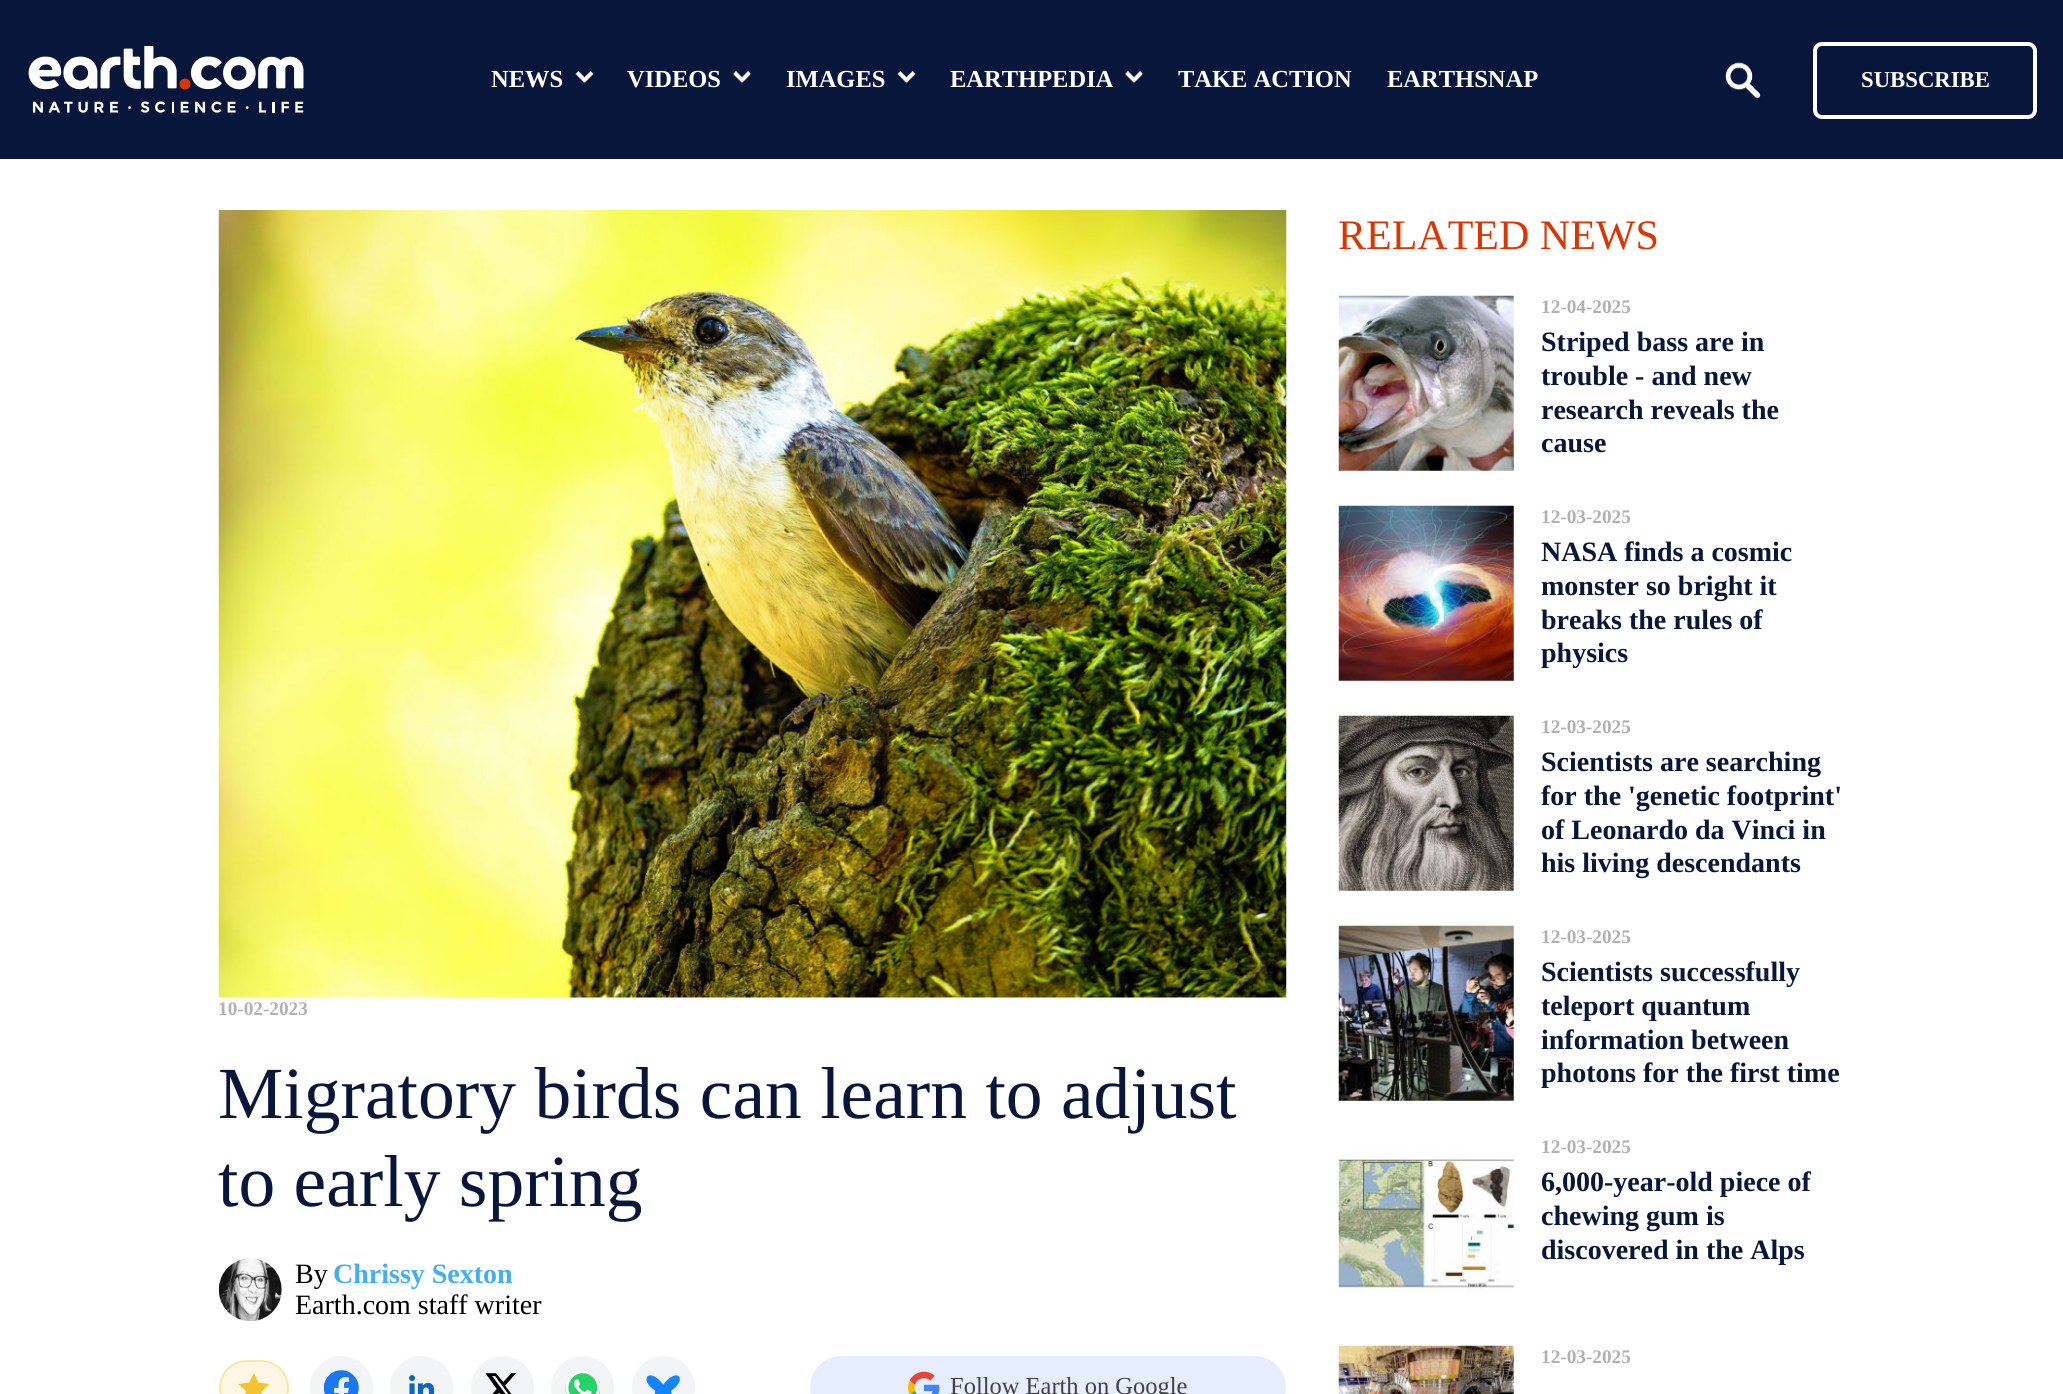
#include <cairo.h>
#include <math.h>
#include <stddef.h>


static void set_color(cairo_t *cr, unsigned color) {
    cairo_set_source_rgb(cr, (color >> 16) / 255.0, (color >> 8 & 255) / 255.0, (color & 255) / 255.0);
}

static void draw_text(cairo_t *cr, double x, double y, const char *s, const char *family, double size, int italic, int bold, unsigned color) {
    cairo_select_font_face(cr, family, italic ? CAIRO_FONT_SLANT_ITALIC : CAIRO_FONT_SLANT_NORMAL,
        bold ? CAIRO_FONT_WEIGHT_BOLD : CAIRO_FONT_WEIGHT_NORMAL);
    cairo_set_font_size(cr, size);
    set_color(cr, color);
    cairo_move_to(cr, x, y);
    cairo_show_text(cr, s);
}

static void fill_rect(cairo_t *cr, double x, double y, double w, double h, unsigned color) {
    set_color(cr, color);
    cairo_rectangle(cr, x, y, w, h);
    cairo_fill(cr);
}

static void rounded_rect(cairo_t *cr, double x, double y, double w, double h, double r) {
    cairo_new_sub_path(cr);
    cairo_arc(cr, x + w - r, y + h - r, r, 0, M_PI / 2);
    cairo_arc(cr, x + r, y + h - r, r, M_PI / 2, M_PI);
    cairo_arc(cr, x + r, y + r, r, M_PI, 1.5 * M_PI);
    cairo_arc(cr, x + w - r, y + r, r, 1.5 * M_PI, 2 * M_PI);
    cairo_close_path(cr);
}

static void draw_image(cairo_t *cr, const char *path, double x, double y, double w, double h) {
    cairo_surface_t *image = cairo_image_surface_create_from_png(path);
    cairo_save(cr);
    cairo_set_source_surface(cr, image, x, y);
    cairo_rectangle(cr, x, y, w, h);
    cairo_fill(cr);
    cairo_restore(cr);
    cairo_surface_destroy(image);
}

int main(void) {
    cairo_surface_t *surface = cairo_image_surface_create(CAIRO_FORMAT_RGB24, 2063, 1394);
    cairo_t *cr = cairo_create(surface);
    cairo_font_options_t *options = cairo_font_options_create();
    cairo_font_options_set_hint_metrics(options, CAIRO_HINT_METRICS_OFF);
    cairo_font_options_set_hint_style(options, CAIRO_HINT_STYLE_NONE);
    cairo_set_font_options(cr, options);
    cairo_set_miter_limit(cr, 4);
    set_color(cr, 0xFFFFFF);
    cairo_paint(cr);
    fill_rect(cr, 0, 0, 2063, 159, 0x08163B);
    draw_image(cr, "assets/img1.png", 28, 46, 276, 67);
    draw_text(cr, 491, 87, "NEWS", "Liberation Serif", 24.5, 0, 1, 0xFFFFFF);
    draw_image(cr, "assets/img2.png", 575, 71, 19, 13);
    draw_text(cr, 627, 87, "VIDEOS", "Liberation Serif", 24.5, 0, 1, 0xFFFFFF);
    draw_image(cr, "assets/img3.png", 733, 71, 18, 13);
    draw_text(cr, 786, 87, "IMAGES", "Liberation Serif", 24.5, 0, 1, 0xFFFFFF);
    draw_image(cr, "assets/img2.png", 897, 71, 19, 13);
    draw_text(cr, 950, 87, "EARTHPEDIA", "Liberation Serif", 24.5, 0, 1, 0xFFFFFF);
    draw_image(cr, "assets/img3.png", 1125, 71, 18, 13);
    draw_text(cr, 1178, 87, "TAKE ACTION", "Liberation Serif", 24.5, 0, 1, 0xFFFFFF);
    draw_text(cr, 1387, 87, "EARTHSNAP", "Liberation Serif", 24.5, 0, 1, 0xFFFFFF);
    draw_image(cr, "assets/img4.png", 1725, 62, 36, 36);
    rounded_rect(cr, 1815, 44, 220, 73, 7);
    cairo_set_line_width(cr, 4);
    cairo_stroke(cr);
    draw_text(cr, 1861, 87, "SUBSCRIBE", "Liberation Serif", 22.75, 0, 1, 0xFFFFFF);
    draw_image(cr, "assets/img5.png", 218, 210, 1069, 788);
    draw_text(cr, 218, 1015, "10-02-2023", "Liberation Serif", 19.25, 0, 1, 0xB1B1B1);
    draw_text(cr, 218, 1118, "Migratory birds can learn to adjust", "Liberation Serif", 73.5, 0, 0, 0x08163B);
    draw_text(cr, 218, 1206, "to early spring", "Liberation Serif", 73.5, 0, 0, 0x08163B);
    draw_image(cr, "assets/img6.png", 218, 1258, 64, 64);
    draw_text(cr, 295, 1283, "By", "Liberation Serif", 28, 0, 0, 0x000000);
    draw_text(cr, 333, 1283, "Chrissy Sexton", "Liberation Serif", 28, 0, 1, 0x42AFF4);
    draw_text(cr, 295, 1314, "Earth.com staff writer", "Liberation Serif", 28, 0, 0, 0x000000);
    set_color(cr, 0xFFF7E6);
    rounded_rect(cr, 220, 1361, 68, 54, 27);
    cairo_fill_preserve(cr);
    set_color(cr, 0xFFE4A3);
    cairo_set_line_width(cr, 2);
    cairo_stroke(cr);
    set_color(cr, 0xF4C430);
    cairo_new_path(cr);
    cairo_move_to(cr, 254, 1373);
    cairo_line_to(cr, 258.5, 1382.5);
    cairo_line_to(cr, 269.5, 1384);
    cairo_line_to(cr, 261.5, 1391.5);
    cairo_line_to(cr, 263.5, 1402.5);
    cairo_line_to(cr, 254, 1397);
    cairo_line_to(cr, 244, 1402);
    cairo_line_to(cr, 246, 1391);
    cairo_line_to(cr, 238, 1384);
    cairo_line_to(cr, 249, 1382.5);
    cairo_close_path(cr);
    cairo_fill(cr);
    set_color(cr, 0xF3F4F6);
    cairo_arc(cr, 341.5, 1387.5, 31.5, 0, 2 * M_PI);
    cairo_fill(cr);
    draw_image(cr, "assets/img7.png", 324, 1370, 35, 24);
    cairo_arc(cr, 421.5, 1387.5, 31.5, 0, 2 * M_PI);
    cairo_fill(cr);
    draw_image(cr, "assets/img8.png", 409, 1375, 26, 19);
    cairo_arc(cr, 502.5, 1387.5, 31.5, 0, 2 * M_PI);
    cairo_fill(cr);
    draw_image(cr, "assets/img9.png", 485, 1373, 31, 21);
    cairo_arc(cr, 582.5, 1387.5, 31.5, 0, 2 * M_PI);
    cairo_fill(cr);
    draw_image(cr, "assets/img10.png", 565, 1370, 35, 24);
    cairo_arc(cr, 663.5, 1387.5, 31.5, 0, 2 * M_PI);
    cairo_fill(cr);
    draw_image(cr, "assets/img11.png", 646, 1375, 34, 19);
    set_color(cr, 0xE6EDFF);
    rounded_rect(cr, 810, 1356, 476, 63, 31.5);
    cairo_fill(cr);
    draw_image(cr, "assets/img12.png", 907, 1371, 33, 23);
    draw_text(cr, 950, 1394, "Follow Earth on Google", "Liberation Serif", 24.5, 0, 0, 0x424242);
    draw_text(cr, 1338, 249, "RELATED NEWS", "Liberation Serif", 42, 0, 0, 0xDE3400);
    draw_image(cr, "assets/img13.png", 1338, 295, 176, 176);
    draw_text(cr, 1541, 313, "12-04-2025", "Liberation Serif", 19.25, 0, 1, 0xB1B1B1);
    draw_text(cr, 1541, 351, "Striped bass are in", "Liberation Serif", 28, 0, 1, 0x08163B);
    draw_text(cr, 1541, 385, "trouble - and new", "Liberation Serif", 28, 0, 1, 0x08163B);
    draw_text(cr, 1541, 419, "research reveals the", "Liberation Serif", 28, 0, 1, 0x08163B);
    draw_text(cr, 1541, 452, "cause", "Liberation Serif", 28, 0, 1, 0x08163B);
    draw_image(cr, "assets/img14.png", 1338, 505, 176, 176);
    draw_text(cr, 1541, 523, "12-03-2025", "Liberation Serif", 19.25, 0, 1, 0xB1B1B1);
    draw_text(cr, 1541, 561, "NASA finds a cosmic", "Liberation Serif", 28, 0, 1, 0x08163B);
    draw_text(cr, 1541, 595, "monster so bright it", "Liberation Serif", 28, 0, 1, 0x08163B);
    draw_text(cr, 1541, 629, "breaks the rules of", "Liberation Serif", 28, 0, 1, 0x08163B);
    draw_text(cr, 1541, 662, "physics", "Liberation Serif", 28, 0, 1, 0x08163B);
    draw_image(cr, "assets/img15.png", 1338, 715, 176, 176);
    draw_text(cr, 1541, 733, "12-03-2025", "Liberation Serif", 19.25, 0, 1, 0xB1B1B1);
    draw_text(cr, 1541, 771, "Scientists are searching", "Liberation Serif", 28, 0, 1, 0x08163B);
    draw_text(cr, 1541, 805, "for the 'genetic footprint'", "Liberation Serif", 28, 0, 1, 0x08163B);
    draw_text(cr, 1541, 839, "of Leonardo da Vinci in", "Liberation Serif", 28, 0, 1, 0x08163B);
    draw_text(cr, 1541, 872, "his living descendants", "Liberation Serif", 28, 0, 1, 0x08163B);
    draw_image(cr, "assets/img16.png", 1338, 925, 176, 176);
    draw_text(cr, 1541, 943, "12-03-2025", "Liberation Serif", 19.25, 0, 1, 0xB1B1B1);
    draw_text(cr, 1541, 981, "Scientists successfully", "Liberation Serif", 28, 0, 1, 0x08163B);
    draw_text(cr, 1541, 1015, "teleport quantum", "Liberation Serif", 28, 0, 1, 0x08163B);
    draw_text(cr, 1541, 1049, "information between", "Liberation Serif", 28, 0, 1, 0x08163B);
    draw_text(cr, 1541, 1082, "photons for the first time", "Liberation Serif", 28, 0, 1, 0x08163B);
    draw_image(cr, "assets/img17.png", 1338, 1151, 176, 141);
    draw_text(cr, 1541, 1153, "12-03-2025", "Liberation Serif", 19.25, 0, 1, 0xB1B1B1);
    draw_text(cr, 1541, 1191, "6,000-year-old piece of", "Liberation Serif", 28, 0, 1, 0x08163B);
    draw_text(cr, 1541, 1225, "chewing gum is", "Liberation Serif", 28, 0, 1, 0x08163B);
    draw_text(cr, 1541, 1259, "discovered in the Alps", "Liberation Serif", 28, 0, 1, 0x08163B);
    draw_image(cr, "assets/img18.png", 1338, 1345, 176, 49);
    draw_text(cr, 1541, 1363, "12-03-2025", "Liberation Serif", 19.25, 0, 1, 0xB1B1B1);
    cairo_surface_write_to_png(surface, "output.png");
    cairo_font_options_destroy(options);
    cairo_destroy(cr);
    cairo_surface_destroy(surface);
    return 0;
}
